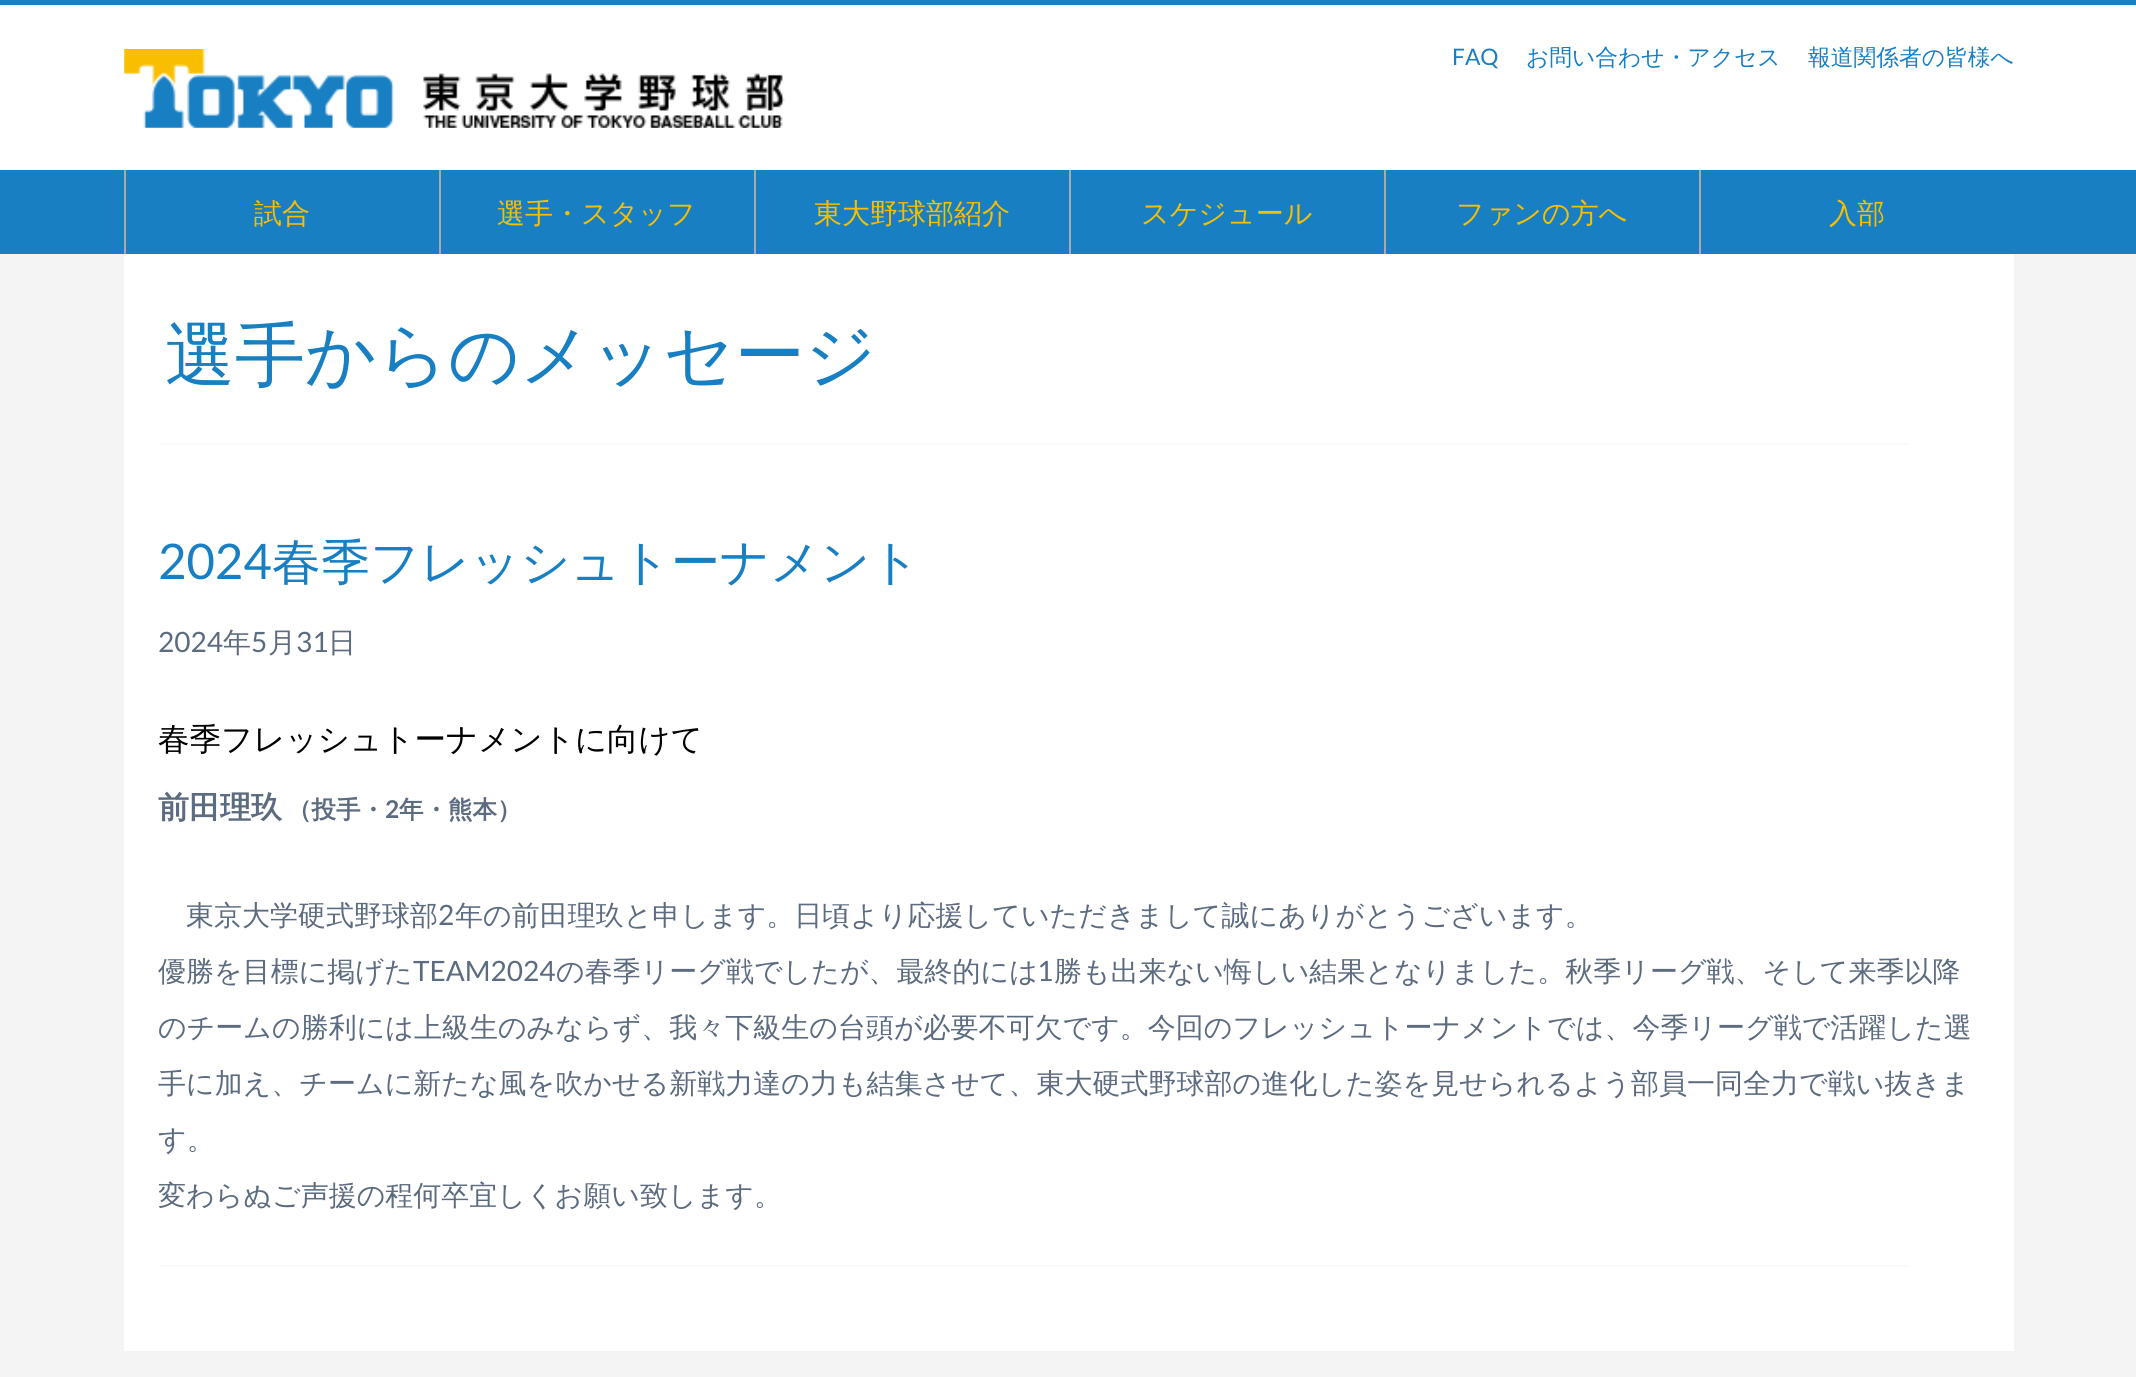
#include <cairo.h>
#include <math.h>
#include <stddef.h>


static void set_color(cairo_t *cr, unsigned color) {
    cairo_set_source_rgb(cr, (color >> 16) / 255.0, (color >> 8 & 255) / 255.0, (color & 255) / 255.0);
}

static void draw_text(cairo_t *cr, double x, double y, const char *s, const char *family, double size, int italic, int bold, unsigned color) {
    cairo_select_font_face(cr, family, italic ? CAIRO_FONT_SLANT_ITALIC : CAIRO_FONT_SLANT_NORMAL,
        bold ? CAIRO_FONT_WEIGHT_BOLD : CAIRO_FONT_WEIGHT_NORMAL);
    cairo_set_font_size(cr, size);
    set_color(cr, color);
    cairo_move_to(cr, x, y);
    cairo_show_text(cr, s);
}

static void fill_rect(cairo_t *cr, double x, double y, double w, double h, unsigned color) {
    set_color(cr, color);
    cairo_rectangle(cr, x, y, w, h);
    cairo_fill(cr);
}

static void draw_image(cairo_t *cr, const char *path, double x, double y, double w, double h) {
    cairo_surface_t *image = cairo_image_surface_create_from_png(path);
    cairo_save(cr);
    cairo_set_source_surface(cr, image, x, y);
    cairo_rectangle(cr, x, y, w, h);
    cairo_fill(cr);
    cairo_restore(cr);
    cairo_surface_destroy(image);
}

int main(void) {
    cairo_surface_t *surface = cairo_image_surface_create(CAIRO_FORMAT_RGB24, 2136, 1377);
    cairo_t *cr = cairo_create(surface);
    cairo_font_options_t *options = cairo_font_options_create();
    cairo_font_options_set_hint_metrics(options, CAIRO_HINT_METRICS_OFF);
    cairo_font_options_set_hint_style(options, CAIRO_HINT_STYLE_NONE);
    cairo_set_font_options(cr, options);
    cairo_set_miter_limit(cr, 4);
    set_color(cr, 0xF4F4F4);
    cairo_paint(cr);
    fill_rect(cr, 0, 5, 2136, 165, 0xFFFFFF);
    fill_rect(cr, 0, 0, 2136, 5, 0x187FC3);
    draw_image(cr, "assets/img1.png", 124, 49, 661, 79);
    draw_text(cr, 1452, 65, "FAQ", "Lato", 22.75, 0, 0, 0x187FC3);
    draw_text(cr, 1526, 65, "お問い合わせ・アクセス", "WenQuanYi Zen Hei Medium", 22.75, 0, 0, 0x187FC3);
    draw_text(cr, 1808, 65, "報道関係者の皆様へ", "WenQuanYi Zen Hei Medium", 22.75, 0, 0, 0x187FC3);
    fill_rect(cr, 0, 170, 2136, 84, 0x187FC3);
    fill_rect(cr, 124, 170, 2, 84, 0xAAAAAA);
    draw_text(cr, 254, 223, "試合", "WenQuanYi Zen Hei Medium", 28, 0, 0, 0xF9BE00);
    fill_rect(cr, 439, 170, 2, 84, 0xAAAAAA);
    draw_text(cr, 497, 223, "選手・スタッフ", "WenQuanYi Zen Hei Medium", 28, 0, 0, 0xF9BE00);
    fill_rect(cr, 754, 170, 2, 84, 0xAAAAAA);
    draw_text(cr, 814, 223, "東大野球部紹介", "WenQuanYi Zen Hei Medium", 28, 0, 0, 0xF9BE00);
    fill_rect(cr, 1069, 170, 2, 84, 0xAAAAAA);
    draw_text(cr, 1141, 223, "スケジュール", "WenQuanYi Zen Hei Medium", 28, 0, 0, 0xF9BE00);
    fill_rect(cr, 1384, 170, 2, 84, 0xAAAAAA);
    draw_text(cr, 1456, 223, "ファンの方へ", "WenQuanYi Zen Hei Medium", 28, 0, 0, 0xF9BE00);
    fill_rect(cr, 1699, 170, 2, 84, 0xAAAAAA);
    draw_text(cr, 1829, 223, "入部", "WenQuanYi Zen Hei Medium", 28, 0, 0, 0xF9BE00);
    fill_rect(cr, 124, 254, 1890, 1097, 0xFFFFFF);
    fill_rect(cr, 159, 443, 1750, 2, 0xF8F9FA);
    draw_text(cr, 165, 379, "選手からのメッセージ", "WenQuanYi Zen Hei Medium", 70, 0, 0, 0x187FC3);
    draw_text(cr, 158, 579, "2024", "Lato", 49, 0, 0, 0x187FC3);
    draw_text(cr, 272, 579, "春季フレッシュトーナメント", "WenQuanYi Zen Hei Medium", 49, 0, 0, 0x187FC3);
    draw_text(cr, 158, 652, "2024", "Lato", 28, 0, 0, 0x5C6B80);
    draw_text(cr, 223, 652, "年", "WenQuanYi Zen Hei Medium", 28, 0, 0, 0x5C6B80);
    draw_text(cr, 251, 652, "5", "Lato", 28, 0, 0, 0x5C6B80);
    draw_text(cr, 268, 652, "月", "WenQuanYi Zen Hei Medium", 28, 0, 0, 0x5C6B80);
    draw_text(cr, 296, 652, "31", "Lato", 28, 0, 0, 0x5C6B80);
    draw_text(cr, 328, 652, "日", "WenQuanYi Zen Hei Medium", 28, 0, 0, 0x5C6B80);
    draw_text(cr, 158, 750, "春季フレッシュトーナメントに向けて", "WenQuanYi Zen Hei Medium", 31.5, 0, 0, 0x000000);
    draw_text(cr, 158, 818, "前田理玖", "WenQuanYi Zen Hei", 31, 0, 1, 0x5C6B80);
    draw_text(cr, 287, 818, "（投手・", "WenQuanYi Zen Hei", 24.5, 0, 1, 0x5C6B80);
    draw_text(cr, 385, 818, "2", "Lato", 24.5, 0, 1, 0x5C6B80);
    draw_text(cr, 399, 818, "年・熊本）", "WenQuanYi Zen Hei", 24.5, 0, 1, 0x5C6B80);
    draw_text(cr, 186, 925, "東京大学硬式野球部", "WenQuanYi Zen Hei Medium", 28, 0, 0, 0x5C6B80);
    draw_text(cr, 438, 925, "2", "Lato", 28, 0, 0, 0x5C6B80);
    draw_text(cr, 455, 925, "年の前田理玖と申します。日頃より応援していただきまして誠にありがとうございます。", "WenQuanYi Zen Hei Medium", 28, 0, 0, 0x5C6B80);
    draw_text(cr, 158, 981, "優勝を目標に掲げた", "WenQuanYi Zen Hei Medium", 28, 0, 0, 0x5C6B80);
    draw_text(cr, 413, 981, "TEAM2024", "Lato", 28, 0, 0, 0x5C6B80);
    draw_text(cr, 556, 981, "の春季リーグ戦でしたが、最終的には", "WenQuanYi Zen Hei Medium", 28, 0, 0, 0x5C6B80);
    draw_text(cr, 1037, 981, "1", "Lato", 28, 0, 0, 0x5C6B80);
    draw_text(cr, 1054, 981, "勝も出来ない悔しい結果となりました。秋季リーグ戦、そして来季以降", "WenQuanYi Zen Hei Medium", 28, 0, 0, 0x5C6B80);
    draw_text(cr, 158, 1037, "のチームの勝利には上級生のみならず、我々下級生の台頭が必要不可欠です。今回のフレッシュトーナメントでは、今季リーグ戦で活躍した選", "WenQuanYi Zen Hei Medium", 28, 0, 0, 0x5C6B80);
    draw_text(cr, 158, 1093, "手に加え、チームに新たな風を吹かせる新戦力達の力も結集させて、東大硬式野球部の進化した姿を見せられるよう部員一同全力で戦い抜きま", "WenQuanYi Zen Hei Medium", 28, 0, 0, 0x5C6B80);
    draw_text(cr, 158, 1149, "す。", "WenQuanYi Zen Hei Medium", 28, 0, 0, 0x5C6B80);
    draw_text(cr, 158, 1205, "変わらぬご声援の程何卒宜しくお願い致します。", "WenQuanYi Zen Hei Medium", 28, 0, 0, 0x5C6B80);
    fill_rect(cr, 159, 1265, 1750, 2, 0xF8F9FA);
    cairo_surface_write_to_png(surface, "output.png");
    cairo_font_options_destroy(options);
    cairo_destroy(cr);
    cairo_surface_destroy(surface);
    return 0;
}
